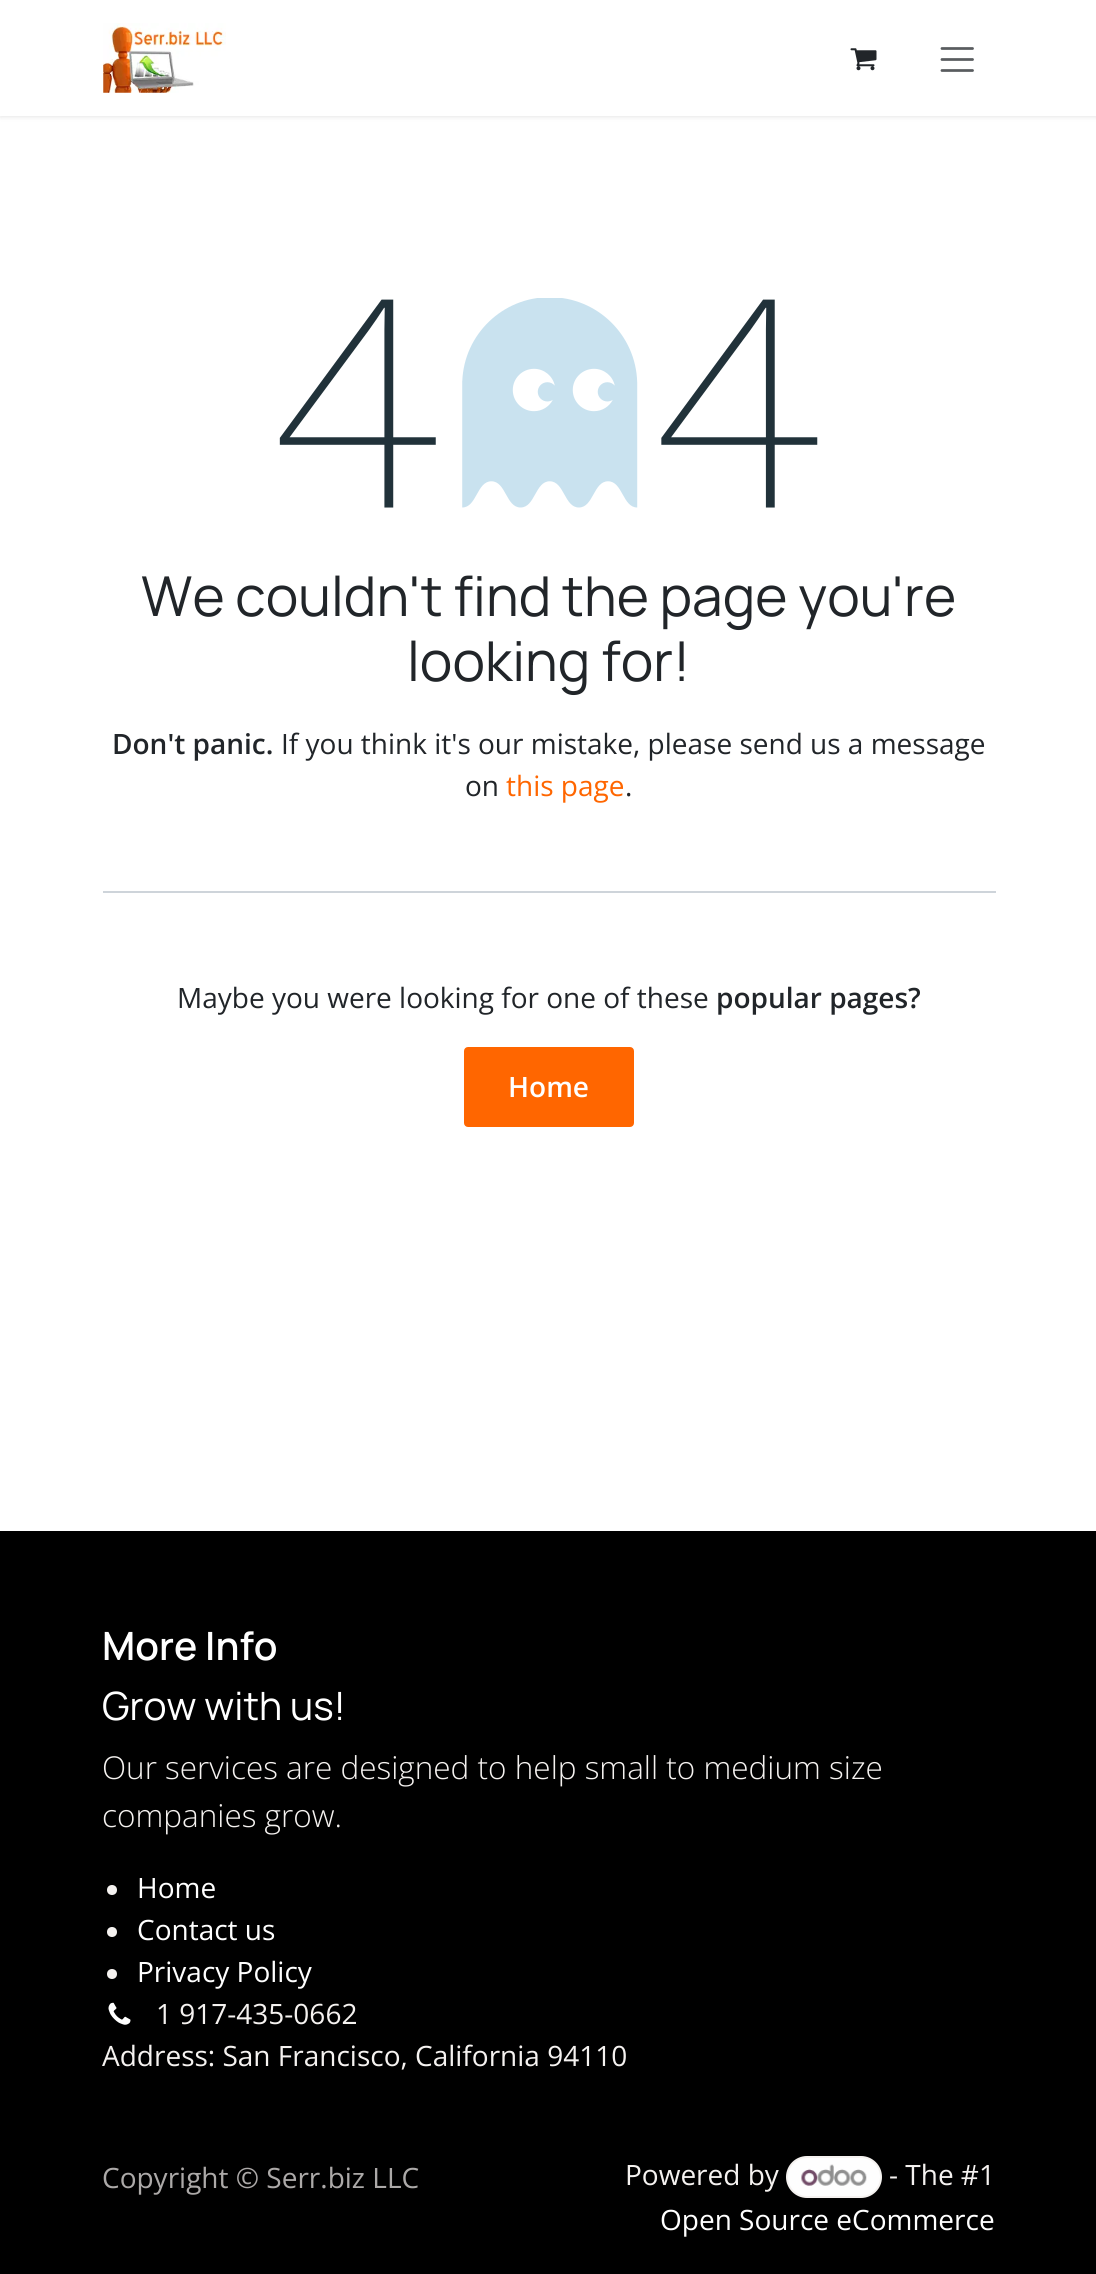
#include <cairo.h>
#include <math.h>
#include <stddef.h>


static void set_color(cairo_t *cr, unsigned color) {
    cairo_set_source_rgb(cr, (color >> 16) / 255.0, (color >> 8 & 255) / 255.0, (color & 255) / 255.0);
}

static void draw_text(cairo_t *cr, double x, double y, const char *s, const char *family, double size, int italic, int bold, unsigned color) {
    cairo_select_font_face(cr, family, italic ? CAIRO_FONT_SLANT_ITALIC : CAIRO_FONT_SLANT_NORMAL,
        bold ? CAIRO_FONT_WEIGHT_BOLD : CAIRO_FONT_WEIGHT_NORMAL);
    cairo_set_font_size(cr, size);
    set_color(cr, color);
    cairo_move_to(cr, x, y);
    cairo_show_text(cr, s);
}

static void draw_spaced(cairo_t *cr, double x, double y, const char *s, double letter, double word) {
    cairo_move_to(cr, x, y);
    while (*s) {
        char ch[5] = {0};
        int n = 0;
        do ch[n++] = *s++; while ((*s & 0xC0) == 0x80);
        cairo_show_text(cr, ch);
        cairo_rel_move_to(cr, letter + word * (*ch == ' '), 0);
    }
}

static void fill_rect(cairo_t *cr, double x, double y, double w, double h, unsigned color) {
    set_color(cr, color);
    cairo_rectangle(cr, x, y, w, h);
    cairo_fill(cr);
}

static void rounded_rect(cairo_t *cr, double x, double y, double w, double h, double r) {
    cairo_new_sub_path(cr);
    cairo_arc(cr, x + w - r, y + h - r, r, 0, M_PI / 2);
    cairo_arc(cr, x + r, y + h - r, r, M_PI / 2, M_PI);
    cairo_arc(cr, x + r, y + r, r, M_PI, 1.5 * M_PI);
    cairo_arc(cr, x + w - r, y + r, r, 1.5 * M_PI, 2 * M_PI);
    cairo_close_path(cr);
}

static void draw_shadow(cairo_t *cr, double x, double y, double w, double h, double r, double blur, double alpha) {
    cairo_push_group_with_content(cr, CAIRO_CONTENT_ALPHA);
    cairo_set_operator(cr, CAIRO_OPERATOR_SOURCE);
    for (int i = 15; i >= -15 && fmin(w, h) + blur * i / 3 > 0; i -= 2) {
        double e = blur * i / 6;
        cairo_set_source_rgba(cr, 0, 0, 0, alpha * erfc((i - 1) / 8.5) / 2);
        rounded_rect(cr, x - e, y - e, w + 2 * e, h + 2 * e, fmax(0, fmin(r + e + blur * .6, fmin(w, h) / 2 + e)));
        cairo_fill(cr);
    }
    cairo_pattern_t *soft = cairo_pop_group(cr);
    cairo_mask(cr, soft);
    cairo_pattern_destroy(soft);
}

static void draw_image(cairo_t *cr, const char *path, double x, double y, double w, double h) {
    cairo_surface_t *image = cairo_image_surface_create_from_png(path);
    cairo_save(cr);
    cairo_set_source_surface(cr, image, x, y);
    cairo_rectangle(cr, x, y, w, h);
    cairo_fill(cr);
    cairo_restore(cr);
    cairo_surface_destroy(image);
}

int main(void) {
    cairo_surface_t *surface = cairo_image_surface_create(CAIRO_FORMAT_RGB24, 1096, 2274);
    cairo_t *cr = cairo_create(surface);
    cairo_font_options_t *options = cairo_font_options_create();
    cairo_font_options_set_hint_metrics(options, CAIRO_HINT_METRICS_OFF);
    cairo_font_options_set_hint_style(options, CAIRO_HINT_STYLE_NONE);
    cairo_set_font_options(cr, options);
    cairo_set_miter_limit(cr, 4);
    set_color(cr, 0xFFFFFF);
    cairo_paint(cr);
    set_color(cr, 0x000000);
    draw_shadow(cr, 0, 2, 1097, 115, 0, 2.5, 0.1);
    fill_rect(cr, 0, 0, 1096, 116, 0xFFFFFF);
    draw_image(cr, "assets/img1.png", 103, 23, 123, 70);
    draw_image(cr, "assets/img2.png", 850, 48, 27, 23);
    cairo_new_path(cr);
    cairo_move_to(cr, 942, 48.5);
    cairo_line_to(cr, 972.5, 48.5);
    cairo_move_to(cr, 942, 59.5);
    cairo_line_to(cr, 972.5, 59.5);
    cairo_move_to(cr, 942, 70.5);
    cairo_line_to(cr, 972.5, 70.5);
    set_color(cr, 0x595C5F);
    cairo_set_line_width(cr, 2.8);
    cairo_set_line_cap(cr, CAIRO_LINE_CAP_ROUND);
    cairo_stroke(cr);
    draw_image(cr, "assets/img3.png", 279, 298, 539, 210);
    cairo_select_font_face(cr, "Manrope", CAIRO_FONT_SLANT_NORMAL, CAIRO_FONT_WEIGHT_NORMAL);
    cairo_set_font_size(cr, 55);
    set_color(cr, 0x212529);
    draw_spaced(cr, 141, 616, "We couldn't find the page you're", 0, -0.25);
    draw_text(cr, 407, 681, "looking for!", "Manrope", 55, 0, 0, 0x212529);
    draw_text(cr, 112, 754, "Don't panic.", "Open Sans SemiBold", 28, 0, 0, 0x212529);
    draw_text(cr, 281, 754, "If you think it's our mistake, please send us a message", "Open Sans", 28, 0, 0, 0x212529);
    draw_text(cr, 465, 796, "on", "Open Sans", 28, 0, 0, 0x212529);
    draw_text(cr, 506, 796, "this page", "Open Sans", 28, 0, 0, 0xFF6600);
    draw_text(cr, 625, 796, ".", "Open Sans", 28, 0, 0, 0x212529);
    fill_rect(cr, 103, 891, 893, 2, 0xCED4DA);
    draw_text(cr, 177, 1008, "Maybe you were looking for one of these", "Open Sans", 28, 0, 0, 0x212529);
    draw_text(cr, 716, 1008, "popular pages?", "Open Sans SemiBold", 28, 0, 0, 0x212529);
    set_color(cr, 0xFF6600);
    rounded_rect(cr, 465, 1048, 168, 78, 3);
    cairo_fill_preserve(cr);
    cairo_set_line_width(cr, 2);
    cairo_set_line_cap(cr, CAIRO_LINE_CAP_BUTT);
    cairo_stroke(cr);
    draw_text(cr, 508, 1097, "Home", "Open Sans SemiBold", 28, 0, 0, 0xFFFFFF);
    fill_rect(cr, 0, 1531, 1096, 743, 0x000000);
    draw_text(cr, 102, 1660, "More Info", "Manrope SemiBold", 39, 0, 0, 0xFFFFFF);
    draw_text(cr, 102, 1720, "Grow with us!", "Manrope", 39, 0, 0, 0xFFFFFF);
    draw_text(cr, 102, 1779, "Our services are designed to help small to medium size", "Open Sans Light", 31.5, 0, 0, 0xF5F2F0);
    draw_text(cr, 102, 1827, "companies grow.", "Open Sans Light", 31.5, 0, 0, 0xF5F2F0);
    cairo_new_path(cr);
    cairo_arc(cr, 112, 1890, 5, 0, 2 * M_PI);
    cairo_fill(cr);
    draw_text(cr, 137, 1898, "Home", "Open Sans", 28, 0, 0, 0xFFFFFF);
    set_color(cr, 0xF5F2F0);
    cairo_new_path(cr);
    cairo_arc(cr, 112, 1932, 5, 0, 2 * M_PI);
    cairo_fill(cr);
    draw_text(cr, 137, 1940, "Contact us", "Open Sans", 28, 0, 0, 0xFFFFFF);
    set_color(cr, 0xF5F2F0);
    cairo_new_path(cr);
    cairo_arc(cr, 112, 1974, 5, 0, 2 * M_PI);
    cairo_fill(cr);
    draw_text(cr, 137, 1982, "Privacy Policy", "Open Sans", 28, 0, 0, 0xFFFFFF);
    draw_image(cr, "assets/img4.png", 108, 2002, 23, 23);
    draw_text(cr, 156, 2024, "1 917-435-0662", "Open Sans", 28, 0, 0, 0xF5F2F0);
    draw_text(cr, 102, 2066, "Address: San Francisco, California 94110", "Open Sans", 28, 0, 0, 0xF5F2F0);
    draw_text(cr, 102, 2188, "Copyright © Serr.biz LLC", "Open Sans", 28, 0, 0, 0xACA9A8);
    draw_text(cr, 625, 2185, "Powered by", "Open Sans", 28, 0, 0, 0xF5F2F0);
    set_color(cr, 0xFEFEFE);
    rounded_rect(cr, 787, 2157, 94, 40, 20);
    cairo_fill_preserve(cr);
    set_color(cr, 0xF5F2F0);
    cairo_stroke(cr);
    draw_image(cr, "assets/img5.png", 801, 2164, 66, 22);
    draw_text(cr, 889, 2185, "- The #1", "Open Sans", 28, 0, 0, 0xF5F2F0);
    draw_text(cr, 660, 2230, "Open Source eCommerce", "Open Sans", 28, 0, 0, 0xFFFFFF);
    cairo_surface_write_to_png(surface, "output.png");
    cairo_font_options_destroy(options);
    cairo_destroy(cr);
    cairo_surface_destroy(surface);
    return 0;
}
